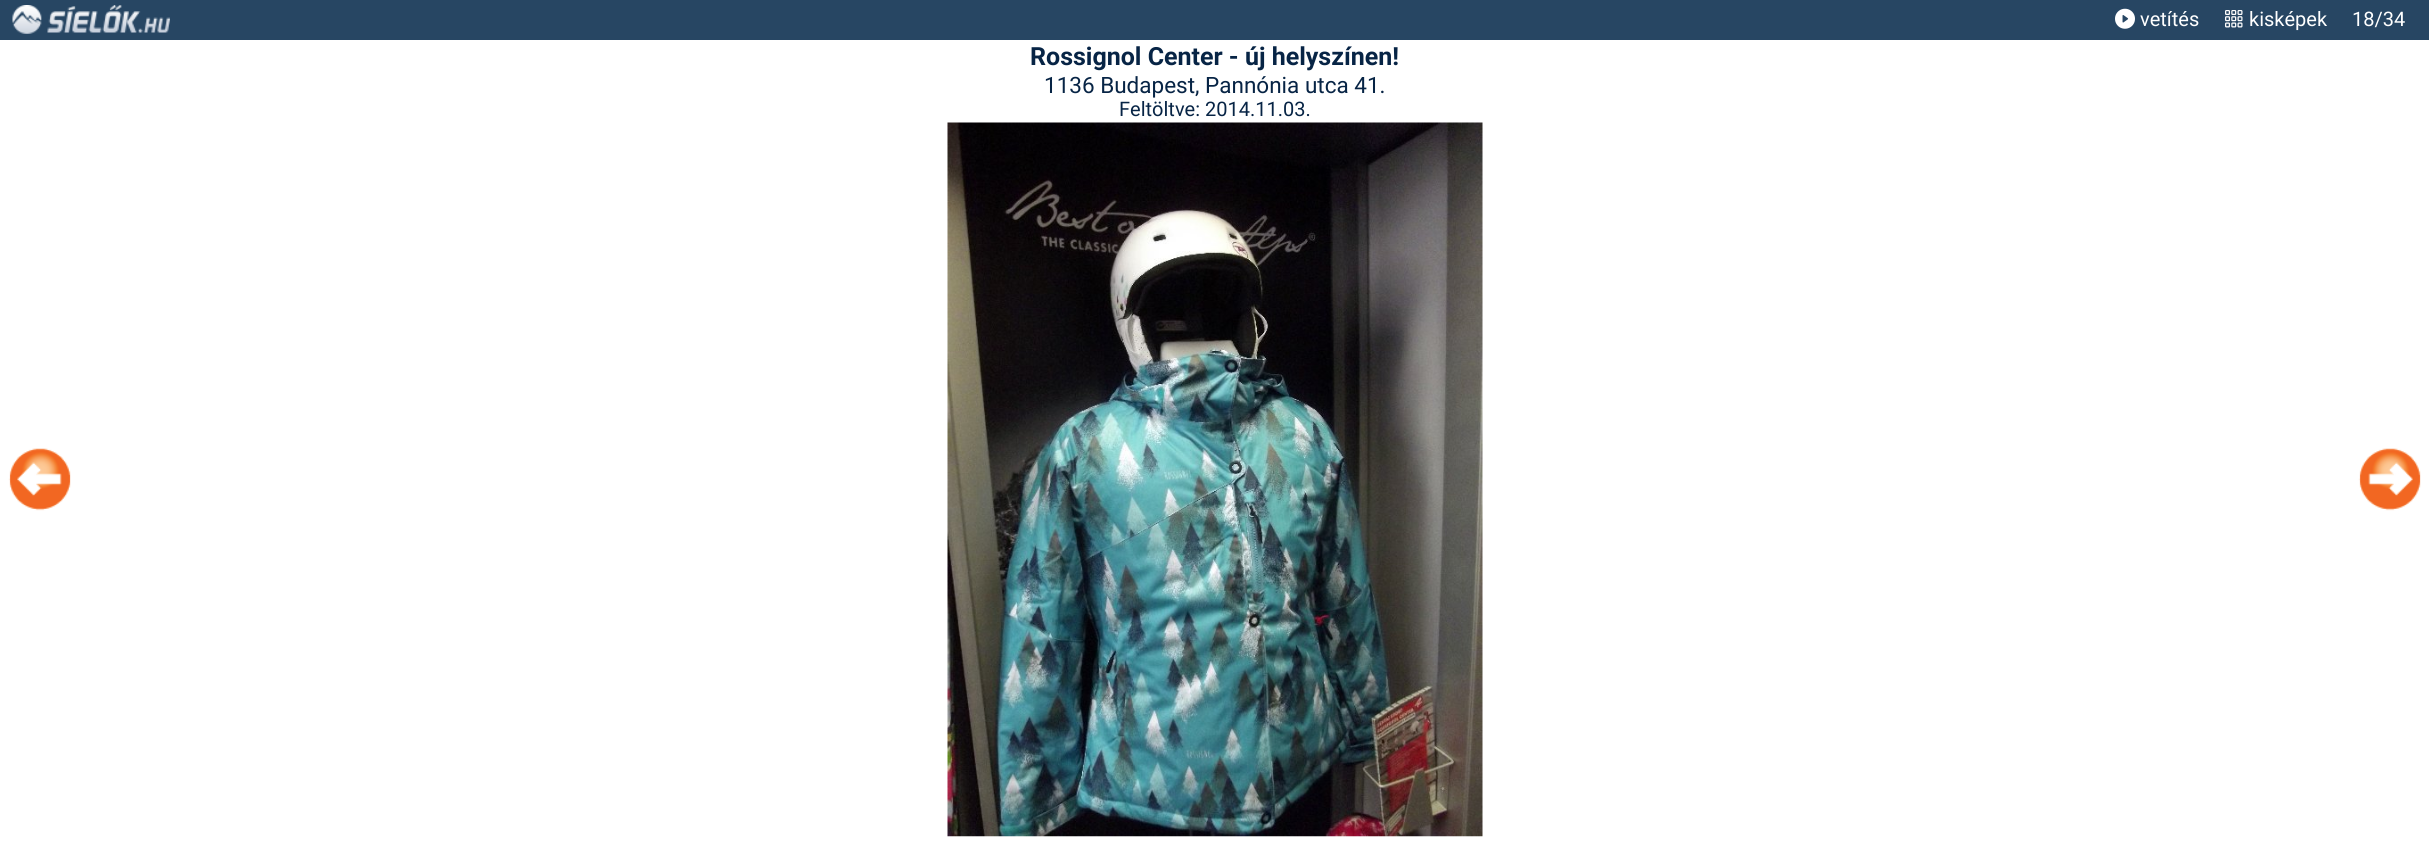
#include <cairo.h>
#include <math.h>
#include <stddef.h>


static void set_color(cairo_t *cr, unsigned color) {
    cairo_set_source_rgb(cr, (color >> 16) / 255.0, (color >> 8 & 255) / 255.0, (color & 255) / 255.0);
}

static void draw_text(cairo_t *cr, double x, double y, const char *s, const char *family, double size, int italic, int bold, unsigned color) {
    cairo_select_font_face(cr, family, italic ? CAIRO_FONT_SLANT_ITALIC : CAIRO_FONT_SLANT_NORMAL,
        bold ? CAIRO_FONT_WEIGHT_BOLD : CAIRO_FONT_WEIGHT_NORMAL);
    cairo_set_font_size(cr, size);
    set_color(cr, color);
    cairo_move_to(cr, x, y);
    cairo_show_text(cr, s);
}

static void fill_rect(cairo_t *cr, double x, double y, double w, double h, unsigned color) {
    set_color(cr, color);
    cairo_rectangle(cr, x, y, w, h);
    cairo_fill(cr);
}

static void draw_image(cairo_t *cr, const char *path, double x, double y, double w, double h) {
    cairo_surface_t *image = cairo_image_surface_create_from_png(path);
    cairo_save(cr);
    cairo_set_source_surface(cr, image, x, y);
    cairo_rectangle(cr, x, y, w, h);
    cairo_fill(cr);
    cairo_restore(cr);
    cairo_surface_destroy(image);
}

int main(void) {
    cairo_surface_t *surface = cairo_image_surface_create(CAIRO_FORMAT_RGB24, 2429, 867);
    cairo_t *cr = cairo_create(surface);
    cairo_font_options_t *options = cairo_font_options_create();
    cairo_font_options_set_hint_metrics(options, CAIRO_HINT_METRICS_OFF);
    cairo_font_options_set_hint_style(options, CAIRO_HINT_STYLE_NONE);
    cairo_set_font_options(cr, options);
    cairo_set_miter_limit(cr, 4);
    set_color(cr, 0xFFFFFF);
    cairo_paint(cr);
    fill_rect(cr, 0, 0, 2429, 40, 0x274663);
    draw_image(cr, "assets/img1.png", 12, 5, 158, 29);
    draw_image(cr, "assets/img2.png", 2115, 8, 20, 21);
    draw_text(cr, 2140, 26, "vetítés", "Roboto", 20, 0, 0, 0xFFFFFF);
    draw_image(cr, "assets/img3.png", 2225, 10, 18, 18);
    draw_text(cr, 2249, 26, "kisképek", "Roboto", 20, 0, 0, 0xFFFFFF);
    draw_text(cr, 2352, 26, "18/34", "Roboto", 20, 0, 0, 0xFFFFFF);
    draw_text(cr, 1030, 65, "Rossignol Center - új helyszínen!", "Roboto", 25, 0, 1, 0x072445);
    draw_text(cr, 1044, 93, "1136 Budapest, Pannónia utca 41.", "Roboto", 22.5, 0, 0, 0x072445);
    draw_text(cr, 1119, 116, "Feltöltve: 2014.11.03.", "Roboto", 20, 0, 0, 0x072445);
    draw_image(cr, "assets/img4.png", 8, 448, 63, 63);
    draw_image(cr, "assets/img5.png", 947, 122, 536, 715);
    draw_image(cr, "assets/img6.png", 2358, 448, 63, 63);
    cairo_surface_write_to_png(surface, "output.png");
    cairo_font_options_destroy(options);
    cairo_destroy(cr);
    cairo_surface_destroy(surface);
    return 0;
}
